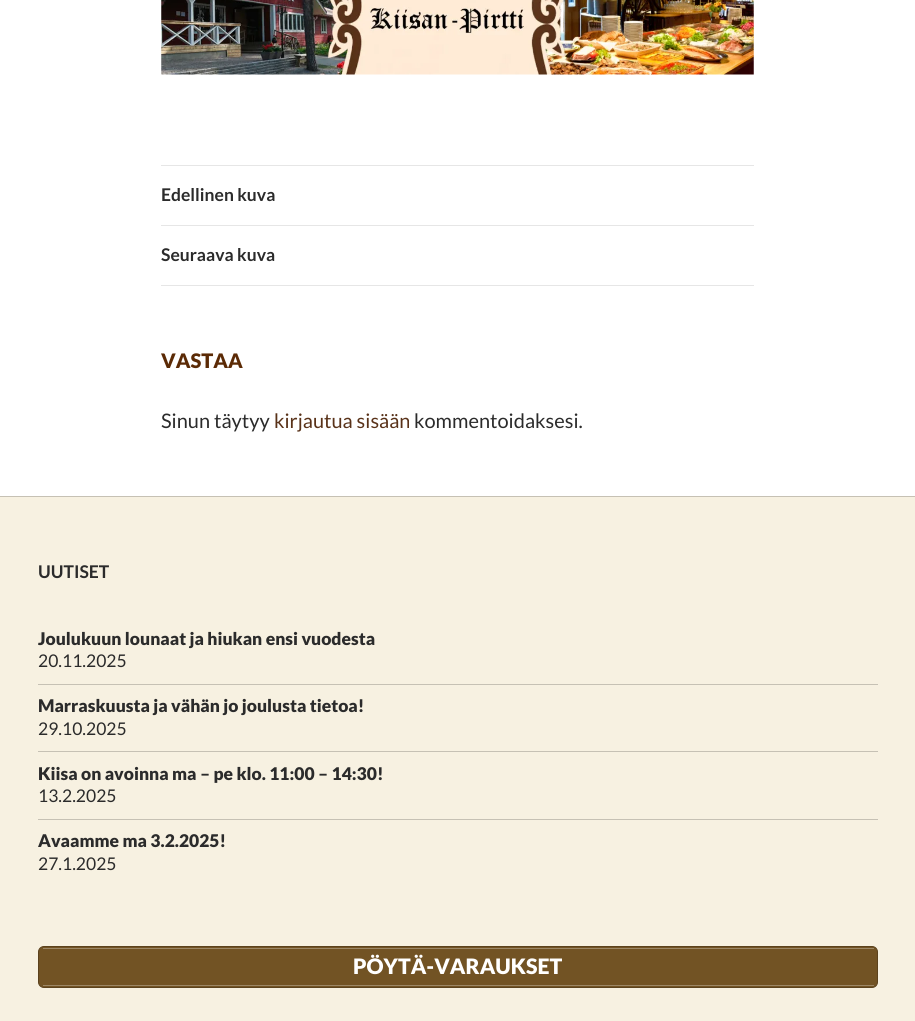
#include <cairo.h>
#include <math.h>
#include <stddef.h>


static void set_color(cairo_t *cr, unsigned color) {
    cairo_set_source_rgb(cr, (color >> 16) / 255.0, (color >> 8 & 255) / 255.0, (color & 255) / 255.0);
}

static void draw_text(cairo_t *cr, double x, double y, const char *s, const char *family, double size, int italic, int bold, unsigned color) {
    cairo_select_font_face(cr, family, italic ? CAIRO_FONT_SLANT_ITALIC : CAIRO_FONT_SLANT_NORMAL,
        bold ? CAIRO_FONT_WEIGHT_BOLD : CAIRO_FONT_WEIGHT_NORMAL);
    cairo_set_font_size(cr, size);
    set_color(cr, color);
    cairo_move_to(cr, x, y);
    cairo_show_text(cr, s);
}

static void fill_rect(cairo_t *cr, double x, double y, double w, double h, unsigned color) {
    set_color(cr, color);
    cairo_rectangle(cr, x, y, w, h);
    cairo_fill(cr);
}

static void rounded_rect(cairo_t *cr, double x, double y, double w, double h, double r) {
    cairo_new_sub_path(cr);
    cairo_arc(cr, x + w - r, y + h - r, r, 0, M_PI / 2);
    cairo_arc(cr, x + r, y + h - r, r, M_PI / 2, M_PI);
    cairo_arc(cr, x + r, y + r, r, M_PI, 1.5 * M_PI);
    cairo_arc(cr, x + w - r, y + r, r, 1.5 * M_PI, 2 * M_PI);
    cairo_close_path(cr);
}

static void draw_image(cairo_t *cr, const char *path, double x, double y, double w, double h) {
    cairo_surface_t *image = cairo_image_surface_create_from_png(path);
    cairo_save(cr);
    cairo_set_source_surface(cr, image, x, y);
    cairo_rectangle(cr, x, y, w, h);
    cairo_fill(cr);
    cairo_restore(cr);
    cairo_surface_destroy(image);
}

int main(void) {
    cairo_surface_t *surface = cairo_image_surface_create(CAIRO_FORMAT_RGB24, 915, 1021);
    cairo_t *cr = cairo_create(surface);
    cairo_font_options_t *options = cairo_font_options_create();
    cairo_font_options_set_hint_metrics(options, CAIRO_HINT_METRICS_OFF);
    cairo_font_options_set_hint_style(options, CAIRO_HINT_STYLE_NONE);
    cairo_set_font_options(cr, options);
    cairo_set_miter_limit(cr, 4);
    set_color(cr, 0xFFFFFF);
    cairo_paint(cr);
    draw_image(cr, "assets/img1.png", 161, 0, 593, 75);
    fill_rect(cr, 161, 165, 593, 1, 0xE6E6E6);
    fill_rect(cr, 161, 225, 593, 1, 0xE6E6E6);
    draw_text(cr, 161, 201, "Edellinen kuva", "Lato", 17.5, 0, 1, 0x2B2B2B);
    fill_rect(cr, 161, 285, 593, 1, 0xE6E6E6);
    draw_text(cr, 161, 261, "Seuraava kuva", "Lato", 17.5, 0, 1, 0x2B2B2B);
    draw_text(cr, 161, 368, "VASTAA", "Lato Black", 20, 0, 0, 0x5B2A05);
    draw_text(cr, 161, 428, "Sinun täytyy", "Lato", 20, 0, 0, 0x2B2B2B);
    draw_text(cr, 274, 428, "kirjautua sisään", "Lato", 20, 0, 0, 0x593219);
    draw_text(cr, 414, 428, "kommentoidaksesi.", "Lato", 20, 0, 0, 0x2B2B2B);
    fill_rect(cr, 0, 497, 915, 524, 0xF7F1E1);
    fill_rect(cr, 0, 496, 915, 1, 0xC6C1B4);
    draw_text(cr, 38, 578, "UUTISET", "Lato", 17.5, 0, 1, 0x2B2B2B);
    draw_text(cr, 38, 645, "Joulukuun lounaat ja hiukan ensi vuodesta", "Lato Black", 17.5, 0, 0, 0x2B2B2B);
    draw_text(cr, 38, 667, "20.11.2025", "Lato", 17.5, 0, 0, 0x2B2B2B);
    fill_rect(cr, 38, 684, 840, 1, 0xC6C1B4);
    draw_text(cr, 38, 712, "Marraskuusta ja vähän jo joulusta tietoa!", "Lato Black", 17.5, 0, 0, 0x2B2B2B);
    draw_text(cr, 38, 735, "29.10.2025", "Lato", 17.5, 0, 0, 0x2B2B2B);
    fill_rect(cr, 38, 751, 840, 1, 0xC6C1B4);
    draw_text(cr, 38, 780, "Kiisa on avoinna ma – pe klo. 11:00 – 14:30!", "Lato Black", 17.5, 0, 0, 0x2B2B2B);
    draw_text(cr, 38, 802, "13.2.2025", "Lato", 17.5, 0, 0, 0x2B2B2B);
    fill_rect(cr, 38, 819, 840, 1, 0xC6C1B4);
    draw_text(cr, 38, 847, "Avaamme ma 3.2.2025!", "Lato Black", 17.5, 0, 0, 0x2B2B2B);
    draw_text(cr, 38, 870, "27.1.2025", "Lato", 17.5, 0, 0, 0x2B2B2B);
    set_color(cr, 0x725324);
    rounded_rect(cr, 38.5, 946.5, 839, 41, 5.5);
    cairo_fill_preserve(cr);
    set_color(cr, 0x5B421D);
    cairo_set_line_width(cr, 1);
    cairo_stroke(cr);
    fill_rect(cr, 43, 948, 831, 1, 0x9C8766);
    fill_rect(cr, 43, 985, 831, 1, 0x9C8766);
    draw_text(cr, 353, 974, "PÖYTÄ-VARAUKSET", "Lato Black", 21.25, 0, 0, 0xFFFFFF);
    cairo_surface_write_to_png(surface, "output.png");
    cairo_font_options_destroy(options);
    cairo_destroy(cr);
    cairo_surface_destroy(surface);
    return 0;
}
